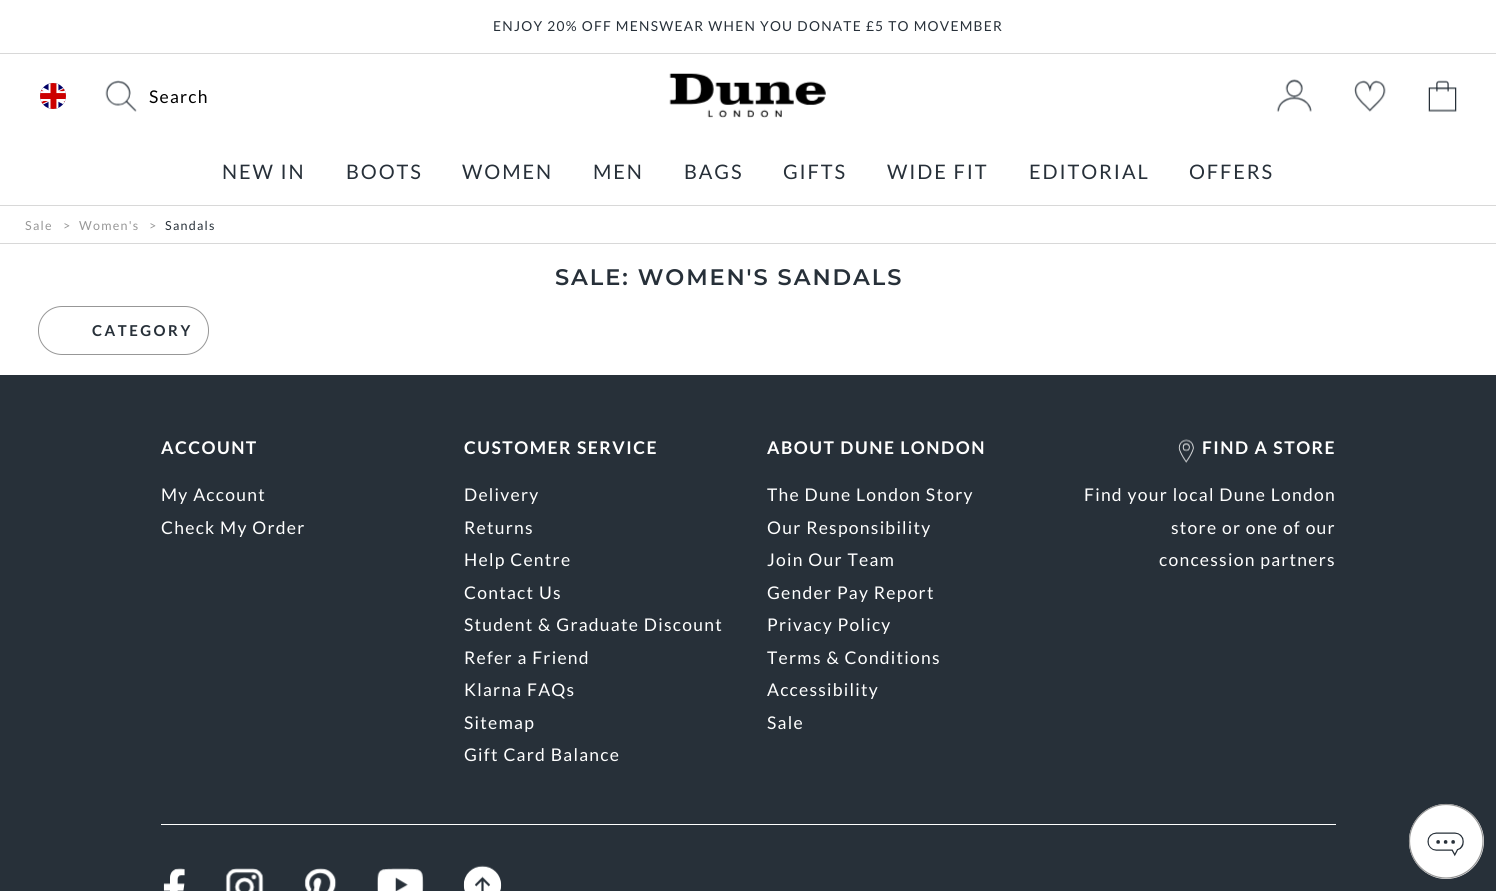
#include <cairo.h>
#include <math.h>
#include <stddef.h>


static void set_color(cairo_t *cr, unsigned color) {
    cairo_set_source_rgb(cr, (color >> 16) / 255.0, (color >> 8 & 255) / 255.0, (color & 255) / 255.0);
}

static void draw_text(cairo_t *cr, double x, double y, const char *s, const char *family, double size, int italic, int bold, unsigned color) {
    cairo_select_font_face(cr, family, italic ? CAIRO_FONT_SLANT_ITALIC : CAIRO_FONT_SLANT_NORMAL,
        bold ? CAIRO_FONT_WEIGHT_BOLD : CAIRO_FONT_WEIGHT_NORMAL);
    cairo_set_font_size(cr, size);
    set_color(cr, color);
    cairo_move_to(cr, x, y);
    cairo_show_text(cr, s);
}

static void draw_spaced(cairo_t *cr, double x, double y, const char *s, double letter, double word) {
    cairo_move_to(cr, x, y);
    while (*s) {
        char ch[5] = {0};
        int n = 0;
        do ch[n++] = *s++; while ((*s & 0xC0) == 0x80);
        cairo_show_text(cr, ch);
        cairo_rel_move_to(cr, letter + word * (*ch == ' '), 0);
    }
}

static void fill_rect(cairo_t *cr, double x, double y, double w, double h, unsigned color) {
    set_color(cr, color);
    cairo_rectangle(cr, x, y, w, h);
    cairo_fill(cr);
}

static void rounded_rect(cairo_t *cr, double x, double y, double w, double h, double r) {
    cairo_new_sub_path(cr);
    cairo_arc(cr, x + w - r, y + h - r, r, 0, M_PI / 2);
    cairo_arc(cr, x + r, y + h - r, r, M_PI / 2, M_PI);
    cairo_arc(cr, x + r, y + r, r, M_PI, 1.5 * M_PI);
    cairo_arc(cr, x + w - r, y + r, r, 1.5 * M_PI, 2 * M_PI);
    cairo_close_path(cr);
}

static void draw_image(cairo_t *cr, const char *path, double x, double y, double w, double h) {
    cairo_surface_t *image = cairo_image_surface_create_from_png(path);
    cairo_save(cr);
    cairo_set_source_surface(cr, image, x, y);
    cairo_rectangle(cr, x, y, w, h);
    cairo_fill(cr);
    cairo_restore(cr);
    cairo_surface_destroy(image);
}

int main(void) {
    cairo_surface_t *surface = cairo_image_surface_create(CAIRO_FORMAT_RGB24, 1496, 891);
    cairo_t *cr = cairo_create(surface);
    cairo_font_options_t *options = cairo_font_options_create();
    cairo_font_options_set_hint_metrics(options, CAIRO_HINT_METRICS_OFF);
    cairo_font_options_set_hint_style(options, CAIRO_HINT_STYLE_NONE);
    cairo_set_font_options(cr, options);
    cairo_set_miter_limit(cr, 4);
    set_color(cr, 0xFFFFFF);
    cairo_paint(cr);
    fill_rect(cr, 0, 53, 1496, 1, 0xD8D8D8);
    cairo_select_font_face(cr, "Lato", CAIRO_FONT_SLANT_NORMAL, CAIRO_FONT_WEIGHT_NORMAL);
    cairo_set_font_size(cr, 13.75);
    set_color(cr, 0x273039);
    draw_spaced(cr, 493, 31, "ENJOY 20% OFF MENSWEAR WHEN YOU DONATE £5 TO MOVEMBER", 1.25, 0);
    draw_image(cr, "assets/img1.png", 40, 83, 26, 26);
    draw_image(cr, "assets/img2.png", 105, 80, 32, 32);
    cairo_set_font_size(cr, 17.5);
    set_color(cr, 0x000000);
    draw_spaced(cr, 149, 103, "Search", 1.25, 0);
    draw_image(cr, "assets/img3.png", 669, 73, 157, 45);
    draw_image(cr, "assets/img4.png", 1276, 79, 36, 33);
    draw_image(cr, "assets/img5.png", 1354, 80, 32, 32);
    draw_image(cr, "assets/img6.png", 1428, 80, 29, 32);
    cairo_set_font_size(cr, 20);
    set_color(cr, 0x273039);
    draw_spaced(cr, 222, 179, "NEW IN", 1.9, 0);
    draw_spaced(cr, 346, 179, "BOOTS", 1.9, 0);
    draw_spaced(cr, 462, 179, "WOMEN", 1.9, 0);
    draw_spaced(cr, 593, 179, "MEN", 1.9, 0);
    draw_spaced(cr, 684, 179, "BAGS", 1.9, 0);
    draw_spaced(cr, 783, 179, "GIFTS", 1.9, 0);
    draw_spaced(cr, 887, 179, "WIDE FIT", 1.9, 0);
    draw_spaced(cr, 1029, 179, "EDITORIAL", 1.9, 0);
    draw_spaced(cr, 1189, 179, "OFFERS", 1.9, 0);
    fill_rect(cr, 0, 205, 1496, 1, 0xD8D8D8);
    fill_rect(cr, 0, 243, 1496, 1, 0xD8D8D8);
    cairo_set_font_size(cr, 12.5);
    set_color(cr, 0x979797);
    draw_spaced(cr, 25, 230, "Sale", 1.25, 0);
    draw_text(cr, 63, 230, ">", "Lato", 12.5, 0, 0, 0x979797);
    draw_spaced(cr, 79, 230, "Women's", 1.25, 0);
    draw_text(cr, 149, 230, ">", "Lato", 12.5, 0, 0, 0x979797);
    set_color(cr, 0x273039);
    draw_spaced(cr, 165, 230, "Sandals", 1.25, 0);
    cairo_select_font_face(cr, "Montserrat SemiBold", CAIRO_FONT_SLANT_NORMAL, CAIRO_FONT_WEIGHT_NORMAL);
    cairo_set_font_size(cr, 22.5);
    draw_spaced(cr, 555, 285, "SALE: WOMEN'S SANDALS", 1.9, 0);
    rounded_rect(cr, 38.5, 306.5, 170, 48, 23.5);
    set_color(cr, 0x979797);
    cairo_set_line_width(cr, 1);
    cairo_stroke(cr);
    cairo_select_font_face(cr, "Lato", CAIRO_FONT_SLANT_NORMAL, CAIRO_FONT_WEIGHT_BOLD);
    cairo_set_font_size(cr, 15);
    set_color(cr, 0x273039);
    draw_spaced(cr, 92, 336, "CATEGORY", 2.5, 0);
    fill_rect(cr, 0, 375, 1496, 516, 0x273039);
    cairo_set_font_size(cr, 17.5);
    set_color(cr, 0xFFFFFF);
    draw_spaced(cr, 161, 454, "ACCOUNT", 1.5, 0);
    cairo_select_font_face(cr, "Lato", CAIRO_FONT_SLANT_NORMAL, CAIRO_FONT_WEIGHT_NORMAL);
    draw_spaced(cr, 161, 501, "My Account", 1.25, 0);
    draw_spaced(cr, 161, 534, "Check My Order", 1.25, 0);
    cairo_select_font_face(cr, "Lato", CAIRO_FONT_SLANT_NORMAL, CAIRO_FONT_WEIGHT_BOLD);
    draw_spaced(cr, 464, 454, "CUSTOMER SERVICE", 1.5, 0);
    cairo_select_font_face(cr, "Lato", CAIRO_FONT_SLANT_NORMAL, CAIRO_FONT_WEIGHT_NORMAL);
    draw_spaced(cr, 464, 501, "Delivery", 1.25, 0);
    draw_spaced(cr, 464, 534, "Returns", 1.25, 0);
    draw_spaced(cr, 464, 566, "Help Centre", 1.25, 0);
    draw_spaced(cr, 464, 599, "Contact Us", 1.25, 0);
    draw_spaced(cr, 464, 631, "Student & Graduate Discount", 1.25, 0);
    draw_spaced(cr, 464, 664, "Refer a Friend", 1.25, 0);
    draw_spaced(cr, 464, 696, "Klarna FAQs", 1.25, 0);
    draw_spaced(cr, 464, 729, "Sitemap", 1.25, 0);
    draw_spaced(cr, 464, 761, "Gift Card Balance", 1.25, 0);
    cairo_select_font_face(cr, "Lato", CAIRO_FONT_SLANT_NORMAL, CAIRO_FONT_WEIGHT_BOLD);
    draw_spaced(cr, 767, 454, "ABOUT DUNE LONDON", 1.5, 0);
    cairo_select_font_face(cr, "Lato", CAIRO_FONT_SLANT_NORMAL, CAIRO_FONT_WEIGHT_NORMAL);
    draw_spaced(cr, 767, 501, "The Dune London Story", 1.25, 0);
    draw_spaced(cr, 767, 534, "Our Responsibility", 1.25, 0);
    draw_spaced(cr, 767, 566, "Join Our Team", 1.25, 0);
    draw_spaced(cr, 767, 599, "Gender Pay Report", 1.25, 0);
    draw_spaced(cr, 767, 631, "Privacy Policy", 1.25, 0);
    draw_spaced(cr, 767, 664, "Terms & Conditions", 1.25, 0);
    draw_spaced(cr, 767, 696, "Accessibility", 1.25, 0);
    draw_spaced(cr, 767, 729, "Sale", 1.25, 0);
    draw_image(cr, "assets/img7.png", 1178, 439, 16, 24);
    cairo_select_font_face(cr, "Lato", CAIRO_FONT_SLANT_NORMAL, CAIRO_FONT_WEIGHT_BOLD);
    draw_spaced(cr, 1202, 454, "FIND A STORE", 1.5, 0);
    cairo_select_font_face(cr, "Lato", CAIRO_FONT_SLANT_NORMAL, CAIRO_FONT_WEIGHT_NORMAL);
    draw_spaced(cr, 1084, 501, "Find your local Dune London", 1.25, 0);
    draw_spaced(cr, 1171, 534, "store or one of our", 1.25, 0);
    draw_spaced(cr, 1159, 566, "concession partners", 1.25, 0);
    fill_rect(cr, 161, 824, 1175, 1, 0xFFFFFF);
    draw_image(cr, "assets/img8.png", 163, 868, 22, 23);
    draw_image(cr, "assets/img9.png", 225, 868, 39, 23);
    draw_image(cr, "assets/img10.png", 304, 868, 33, 23);
    draw_image(cr, "assets/img11.png", 377, 868, 47, 23);
    draw_image(cr, "assets/img12.png", 463, 865, 39, 26);
    cairo_new_path(cr);
    cairo_move_to(cr, 1409, 841);
    cairo_curve_to(cr, 1409, 821, 1426, 804, 1446, 804);
    cairo_curve_to(cr, 1467, 804, 1484, 821, 1484, 841);
    cairo_curve_to(cr, 1484, 862, 1467, 879, 1446, 879);
    cairo_curve_to(cr, 1426, 879, 1409, 862, 1409, 841);
    cairo_close_path(cr);
    cairo_fill(cr);
    cairo_new_path(cr);
    cairo_move_to(cr, 1409.5, 841);
    cairo_curve_to(cr, 1409.5, 821, 1426, 804.5, 1446, 804.5);
    cairo_curve_to(cr, 1466.5, 804.5, 1483, 821, 1483, 841);
    cairo_curve_to(cr, 1483, 861.5, 1466.5, 878, 1446, 878);
    cairo_curve_to(cr, 1426, 878, 1409.5, 861.5, 1409.5, 841);
    cairo_close_path(cr);
    set_color(cr, 0x979797);
    cairo_set_line_width(cr, 1.2);
    cairo_stroke(cr);
    draw_image(cr, "assets/img13.png", 1427, 832, 37, 25);
    cairo_surface_write_to_png(surface, "output.png");
    cairo_font_options_destroy(options);
    cairo_destroy(cr);
    cairo_surface_destroy(surface);
    return 0;
}
